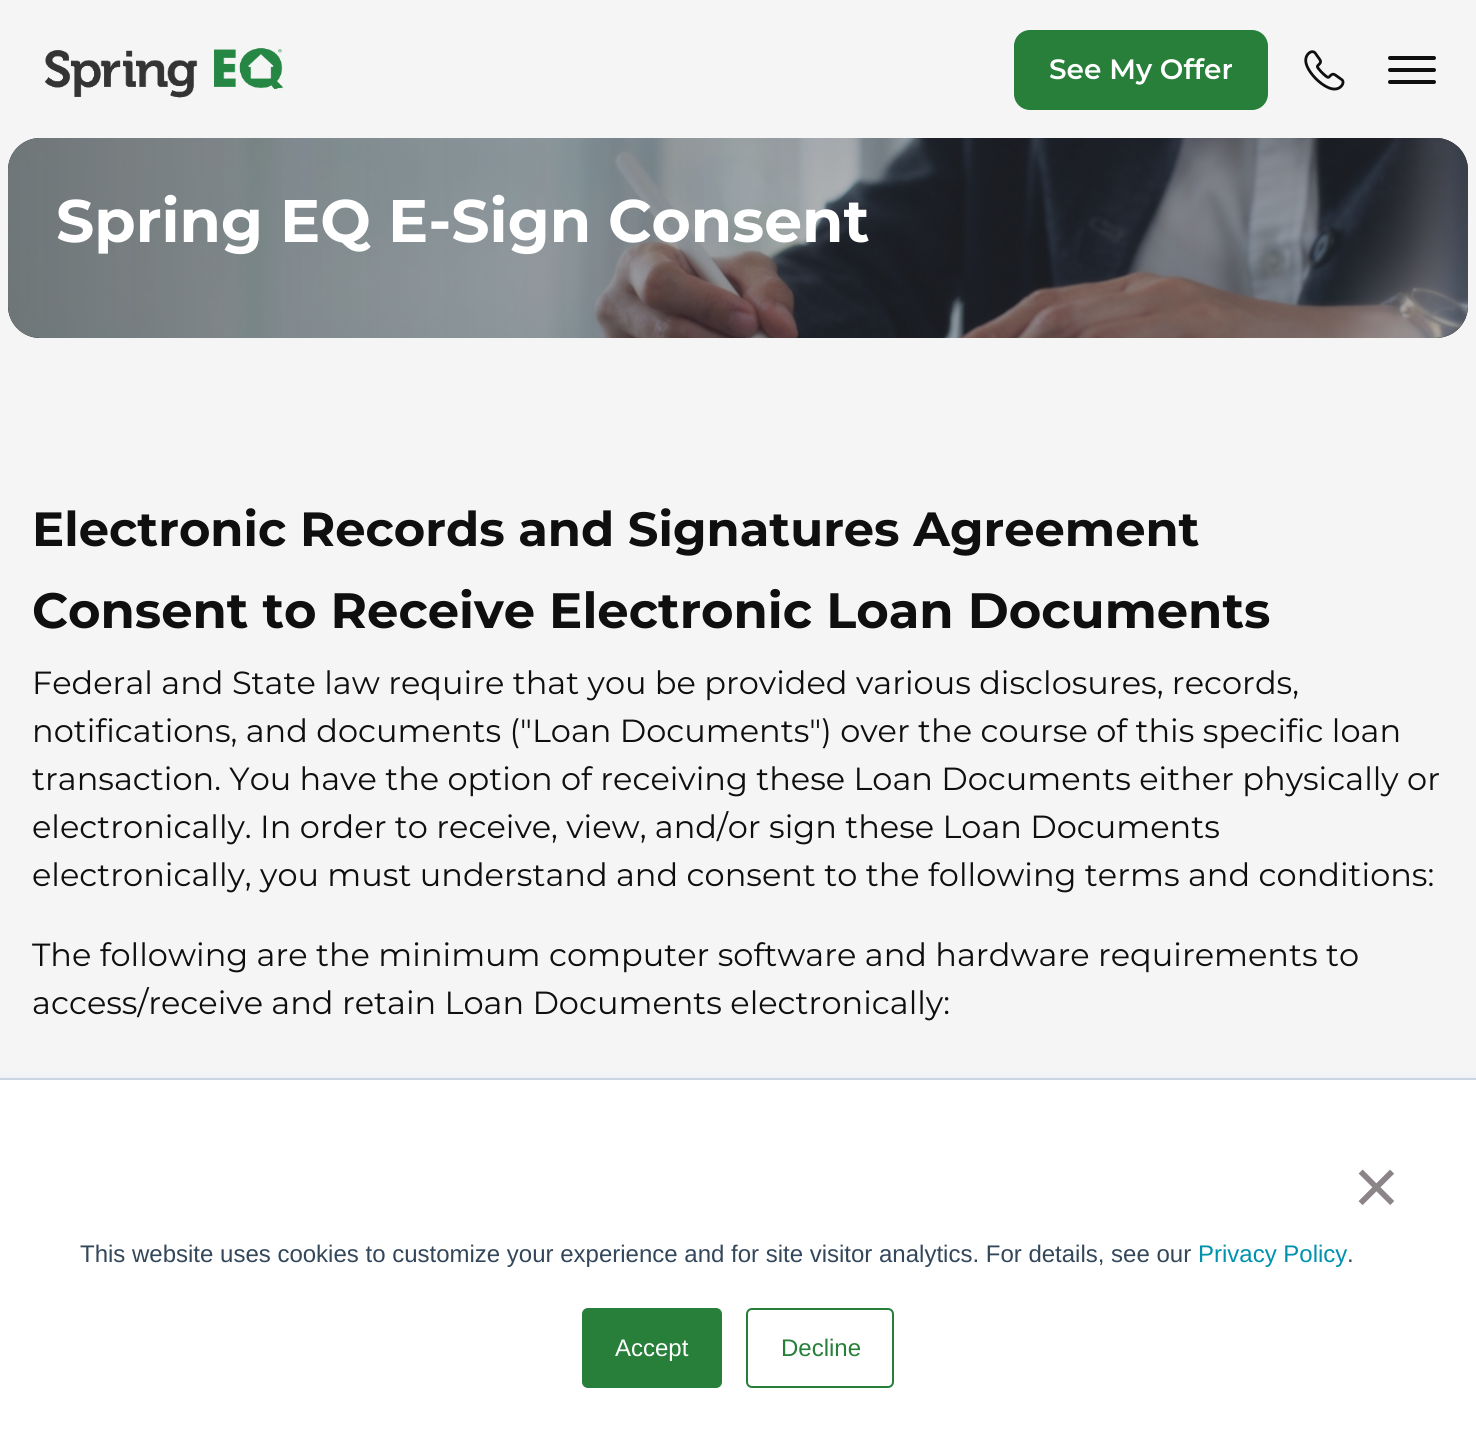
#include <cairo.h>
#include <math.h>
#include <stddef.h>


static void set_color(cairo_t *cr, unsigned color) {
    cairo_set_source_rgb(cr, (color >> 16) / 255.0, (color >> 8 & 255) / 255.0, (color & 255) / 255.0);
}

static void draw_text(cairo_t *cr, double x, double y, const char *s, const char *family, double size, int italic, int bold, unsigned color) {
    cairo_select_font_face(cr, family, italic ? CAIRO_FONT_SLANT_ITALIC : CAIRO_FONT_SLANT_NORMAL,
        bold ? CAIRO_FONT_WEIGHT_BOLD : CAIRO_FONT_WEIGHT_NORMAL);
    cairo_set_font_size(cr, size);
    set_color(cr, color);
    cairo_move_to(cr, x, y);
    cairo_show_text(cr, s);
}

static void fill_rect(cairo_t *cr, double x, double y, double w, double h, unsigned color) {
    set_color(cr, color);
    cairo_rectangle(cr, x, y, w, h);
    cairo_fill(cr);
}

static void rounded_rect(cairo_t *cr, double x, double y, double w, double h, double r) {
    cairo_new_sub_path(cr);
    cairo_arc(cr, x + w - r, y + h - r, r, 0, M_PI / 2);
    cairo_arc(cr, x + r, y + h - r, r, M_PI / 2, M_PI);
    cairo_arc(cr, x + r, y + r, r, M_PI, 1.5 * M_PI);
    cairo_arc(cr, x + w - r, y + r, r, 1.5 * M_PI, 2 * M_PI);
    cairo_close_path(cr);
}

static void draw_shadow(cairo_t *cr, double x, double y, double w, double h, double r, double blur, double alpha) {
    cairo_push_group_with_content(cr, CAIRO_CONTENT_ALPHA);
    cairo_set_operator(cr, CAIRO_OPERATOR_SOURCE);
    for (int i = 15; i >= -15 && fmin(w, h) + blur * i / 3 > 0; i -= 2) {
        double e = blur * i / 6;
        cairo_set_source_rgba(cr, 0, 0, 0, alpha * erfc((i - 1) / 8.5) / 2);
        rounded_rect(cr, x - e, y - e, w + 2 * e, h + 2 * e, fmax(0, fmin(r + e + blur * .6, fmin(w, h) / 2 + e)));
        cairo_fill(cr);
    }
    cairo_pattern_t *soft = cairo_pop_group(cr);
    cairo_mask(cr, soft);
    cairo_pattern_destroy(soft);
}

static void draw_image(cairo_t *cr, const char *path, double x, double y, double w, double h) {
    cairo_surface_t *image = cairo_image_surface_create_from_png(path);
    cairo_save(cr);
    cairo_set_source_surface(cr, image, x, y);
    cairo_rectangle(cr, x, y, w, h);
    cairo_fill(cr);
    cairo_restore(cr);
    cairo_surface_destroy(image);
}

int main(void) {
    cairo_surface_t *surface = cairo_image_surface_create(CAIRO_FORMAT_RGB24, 1476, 1440);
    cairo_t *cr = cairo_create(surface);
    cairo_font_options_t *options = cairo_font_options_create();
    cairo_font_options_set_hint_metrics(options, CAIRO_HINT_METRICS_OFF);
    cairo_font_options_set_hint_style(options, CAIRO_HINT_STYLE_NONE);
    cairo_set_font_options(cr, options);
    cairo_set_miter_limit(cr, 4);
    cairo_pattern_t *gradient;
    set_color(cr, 0xF5F5F6);
    cairo_paint(cr);
    draw_image(cr, "assets/img1.png", 45, 48, 239, 50);
    set_color(cr, 0x277F3A);
    rounded_rect(cr, 1015, 31, 252, 78, 15);
    cairo_fill_preserve(cr);
    cairo_stroke(cr);
    draw_text(cr, 1049, 79, "See My Offer", "Montserrat SemiBold", 28, 0, 0, 0xFFFFFF);
    draw_image(cr, "assets/img2.png", 1304, 50, 41, 41);
    set_color(cr, 0x0F0F0F);
    rounded_rect(cr, 1388, 68, 48, 4, 2);
    cairo_fill(cr);
    rounded_rect(cr, 1388, 56, 48, 4, 2);
    cairo_fill(cr);
    rounded_rect(cr, 1388, 80, 48, 4, 2);
    cairo_fill(cr);
    set_color(cr, 0x292929);
    rounded_rect(cr, 8, 138, 1460, 200, 32);
    cairo_fill(cr);
    draw_image(cr, "assets/img3.png", 8, 138, 1460, 200);
    gradient = cairo_pattern_create_linear(1030, 238, 8, 238);
    cairo_pattern_add_color_stop_rgba(gradient, 0.22, 0.094, 0.122, 0.09, 0);
    cairo_pattern_add_color_stop_rgba(gradient, 1, 0.094, 0.122, 0.09, 0.32);
    cairo_set_source(cr, gradient);
    cairo_pattern_destroy(gradient);
    cairo_new_path(cr);
    cairo_move_to(cr, 40, 138);
    cairo_line_to(cr, 1030, 138);
    cairo_line_to(cr, 1030, 338);
    cairo_line_to(cr, 40, 338);
    cairo_curve_to(cr, 22.5, 338, 8, 323.5, 8, 306);
    cairo_line_to(cr, 8, 170);
    cairo_curve_to(cr, 8, 152.5, 22.5, 138, 40, 138);
    cairo_close_path(cr);
    cairo_fill(cr);
    draw_text(cr, 56, 242, "Spring EQ E-Sign Consent", "Montserrat", 60, 0, 1, 0xFFFFFF);
    draw_text(cr, 32, 546, "Electronic Records and Signatures Agreement", "Montserrat", 48, 0, 1, 0x0F0F0F);
    draw_text(cr, 32, 628, "Consent to Receive Electronic Loan Documents", "Montserrat", 49.65, 0, 1, 0x0F0F0F);
    draw_text(cr, 32, 694, "Federal and State law require that you be provided various disclosures, records,", "Montserrat", 32, 0, 0, 0x0F0F0F);
    draw_text(cr, 32, 742, "notifications, and documents (\"Loan Documents\") over the course of this specific loan", "Montserrat", 32, 0, 0, 0x0F0F0F);
    draw_text(cr, 32, 790, "transaction. You have the option of receiving these Loan Documents either physically or", "Montserrat", 32, 0, 0, 0x0F0F0F);
    draw_text(cr, 32, 838, "electronically. In order to receive, view, and/or sign these Loan Documents", "Montserrat", 32, 0, 0, 0x0F0F0F);
    draw_text(cr, 32, 886, "electronically, you must understand and consent to the following terms and conditions:", "Montserrat", 32, 0, 0, 0x0F0F0F);
    draw_text(cr, 32, 966, "The following are the minimum computer software and hardware requirements to", "Montserrat", 32, 0, 0, 0x0F0F0F);
    draw_text(cr, 32, 1014, "access/receive and retain Loan Documents electronically:", "Montserrat", 32, 0, 0, 0x0F0F0F);
    set_color(cr, 0xEAF0F6);
    draw_shadow(cr, 0, 1076, 1476, 362, 0, 3, 1);
    fill_rect(cr, 0, 1080, 1476, 360, 0xFFFFFF);
    fill_rect(cr, 0, 1078, 1476, 2, 0xCBD6E2);
    draw_text(cr, 1353, 1214, "×", "Liberation Sans", 80, 0, 0, 0x8B8589);
    draw_text(cr, 80, 1262, "This website uses cookies to customize your experience and for site visitor analytics. For details, see our", "Liberation Sans", 24, 0, 0, 0x33475B);
    draw_text(cr, 1198, 1262, "Privacy Policy", "Liberation Sans", 24, 0, 0, 0x0091AE);
    draw_text(cr, 1347, 1262, ".", "Liberation Sans", 24, 0, 0, 0x33475B);
    set_color(cr, 0x277F3A);
    rounded_rect(cr, 583, 1309, 138, 78, 5);
    cairo_fill_preserve(cr);
    cairo_stroke(cr);
    draw_text(cr, 615, 1356, "Accept", "Liberation Sans", 24, 0, 0, 0xFFFFFF);
    rounded_rect(cr, 747, 1309, 146, 78, 5);
    set_color(cr, 0x277F3A);
    cairo_stroke(cr);
    draw_text(cr, 781, 1356, "Decline", "Liberation Sans", 24, 0, 0, 0x277F3A);
    cairo_surface_write_to_png(surface, "output.png");
    cairo_font_options_destroy(options);
    cairo_destroy(cr);
    cairo_surface_destroy(surface);
    return 0;
}
